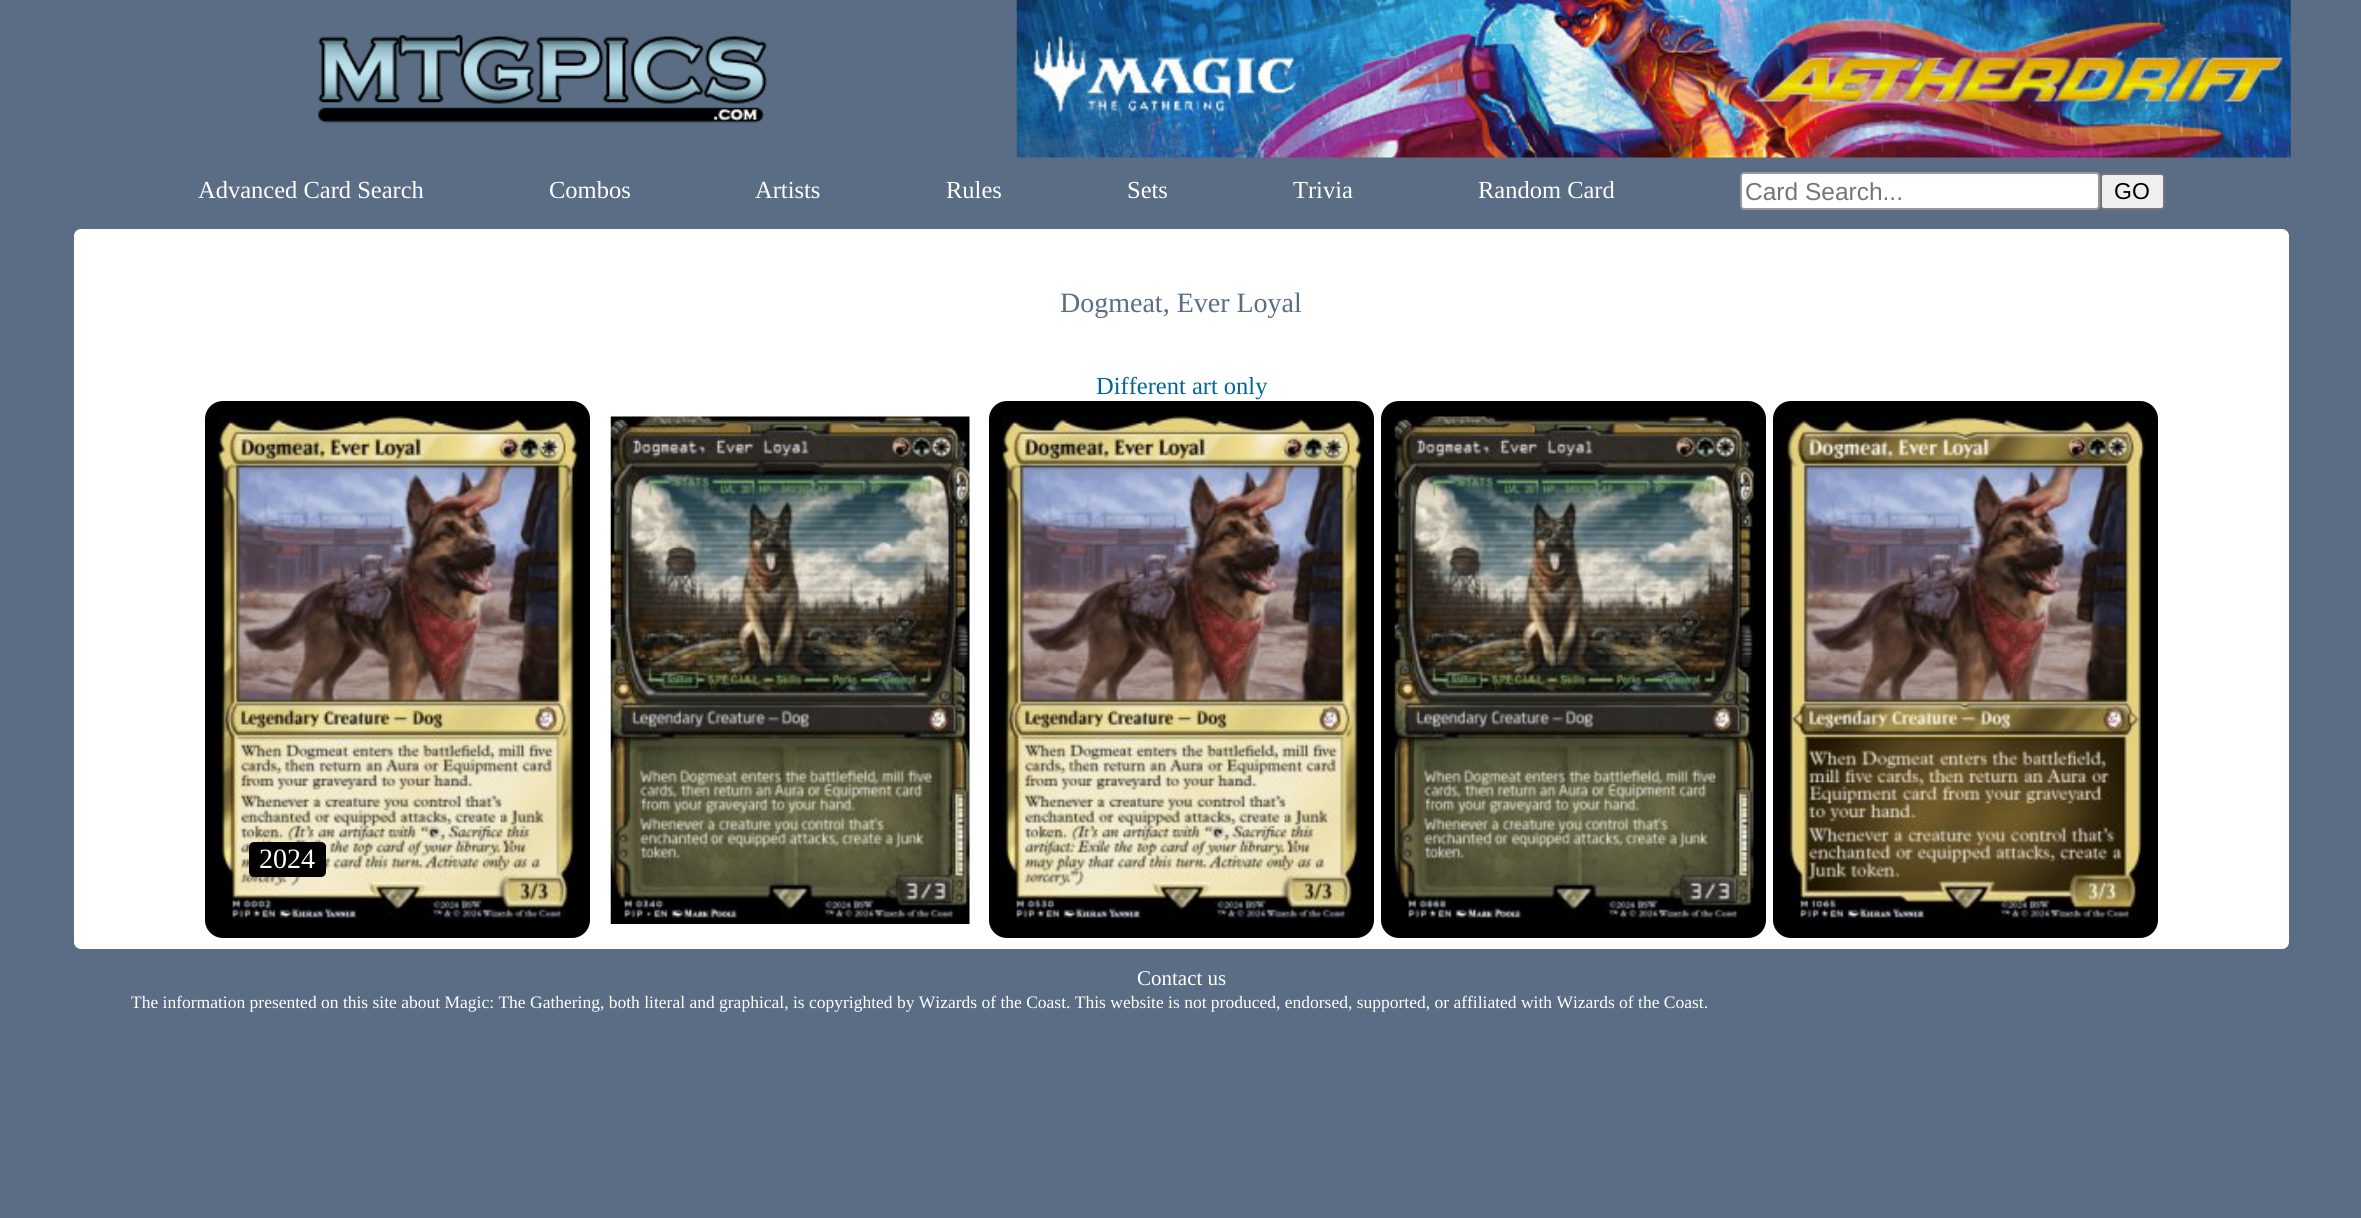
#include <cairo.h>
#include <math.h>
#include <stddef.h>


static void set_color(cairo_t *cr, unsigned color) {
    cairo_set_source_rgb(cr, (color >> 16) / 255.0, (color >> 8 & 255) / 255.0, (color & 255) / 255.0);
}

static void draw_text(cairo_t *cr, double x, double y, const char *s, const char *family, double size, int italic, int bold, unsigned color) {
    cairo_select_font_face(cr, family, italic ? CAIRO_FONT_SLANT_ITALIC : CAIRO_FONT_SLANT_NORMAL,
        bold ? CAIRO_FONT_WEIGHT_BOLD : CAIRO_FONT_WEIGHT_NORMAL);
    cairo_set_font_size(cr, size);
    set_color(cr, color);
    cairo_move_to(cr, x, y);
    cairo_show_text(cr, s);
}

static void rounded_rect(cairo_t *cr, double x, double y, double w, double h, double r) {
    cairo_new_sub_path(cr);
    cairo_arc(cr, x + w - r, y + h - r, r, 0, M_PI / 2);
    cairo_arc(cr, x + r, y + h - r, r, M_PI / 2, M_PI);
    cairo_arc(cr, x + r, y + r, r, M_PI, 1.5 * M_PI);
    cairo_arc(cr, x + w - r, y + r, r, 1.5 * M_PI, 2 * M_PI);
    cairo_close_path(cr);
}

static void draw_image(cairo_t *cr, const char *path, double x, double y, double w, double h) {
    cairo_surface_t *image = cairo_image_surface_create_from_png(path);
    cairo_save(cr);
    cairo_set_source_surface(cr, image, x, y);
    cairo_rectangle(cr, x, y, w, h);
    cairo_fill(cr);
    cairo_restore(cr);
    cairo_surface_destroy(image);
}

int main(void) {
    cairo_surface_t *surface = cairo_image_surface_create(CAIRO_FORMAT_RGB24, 2361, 1218);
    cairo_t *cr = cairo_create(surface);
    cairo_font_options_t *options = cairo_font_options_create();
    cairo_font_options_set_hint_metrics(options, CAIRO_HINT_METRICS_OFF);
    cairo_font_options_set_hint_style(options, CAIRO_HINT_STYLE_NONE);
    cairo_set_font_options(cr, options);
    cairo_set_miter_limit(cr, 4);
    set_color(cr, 0x5A6D85);
    cairo_paint(cr);
    draw_image(cr, "assets/img1.png", 318, 35, 449, 88);
    draw_image(cr, "assets/img2.png", 1016, 0, 1275, 158);
    draw_text(cr, 198, 198, "Advanced Card Search", "Liberation Serif", 24.5, 0, 0, 0xFFFFFF);
    draw_text(cr, 549, 198, "Combos", "Liberation Serif", 24.5, 0, 0, 0xFFFFFF);
    draw_text(cr, 755, 198, "Artists", "Liberation Serif", 24.5, 0, 0, 0xFFFFFF);
    draw_text(cr, 946, 198, "Rules", "Liberation Serif", 24.5, 0, 0, 0xFFFFFF);
    draw_text(cr, 1127, 198, "Sets", "Liberation Serif", 24.5, 0, 0, 0xFFFFFF);
    draw_text(cr, 1293, 198, "Trivia", "Liberation Serif", 24.5, 0, 0, 0xFFFFFF);
    draw_text(cr, 1478, 198, "Random Card", "Liberation Serif", 24.5, 0, 0, 0xFFFFFF);
    rounded_rect(cr, 1741, 173, 358, 36, 3);
    cairo_fill_preserve(cr);
    set_color(cr, 0x999999);
    cairo_stroke(cr);
    draw_text(cr, 1745, 200, "Card Search...", "Liberation Sans", 24.5, 0, 0, 0x757575);
    set_color(cr, 0xEFEFEF);
    rounded_rect(cr, 2101, 174, 63, 35, 3);
    cairo_fill_preserve(cr);
    set_color(cr, 0x767676);
    cairo_stroke(cr);
    draw_text(cr, 2114, 199, "GO", "Liberation Sans", 23, 0, 0, 0x000000);
    set_color(cr, 0xFFFFFF);
    rounded_rect(cr, 74, 229, 2215, 720, 7);
    cairo_fill(cr);
    draw_text(cr, 1060, 312, "Dogmeat, Ever Loyal", "Liberation Serif", 28, 0, 0, 0x5A6D85);
    draw_text(cr, 1096, 394, "Different art only", "Liberation Serif", 24.5, 0, 0, 0x006699);
    set_color(cr, 0x000000);
    rounded_rect(cr, 206, 402, 383, 535, 17);
    cairo_fill_preserve(cr);
    cairo_stroke(cr);
    draw_image(cr, "assets/img3.png", 218, 416, 360, 505);
    rounded_rect(cr, 249, 842, 77, 35, 5);
    cairo_fill(cr);
    draw_text(cr, 259, 868, "2024", "Liberation Serif", 28, 0, 0, 0xFFFFFF);
    draw_image(cr, "assets/img4.png", 610, 416, 360, 508);
    set_color(cr, 0x000000);
    rounded_rect(cr, 990, 402, 383, 535, 17);
    cairo_fill_preserve(cr);
    cairo_stroke(cr);
    draw_image(cr, "assets/img5.png", 1002, 416, 360, 505);
    rounded_rect(cr, 1382, 402, 383, 535, 17);
    cairo_fill_preserve(cr);
    cairo_stroke(cr);
    draw_image(cr, "assets/img6.png", 1394, 416, 360, 505);
    rounded_rect(cr, 1774, 402, 383, 535, 17);
    cairo_fill_preserve(cr);
    cairo_stroke(cr);
    draw_image(cr, "assets/img7.png", 1786, 416, 360, 505);
    draw_text(cr, 1137, 985, "Contact us", "Liberation Serif", 21, 0, 0, 0xFFFFFF);
    draw_text(cr, 131, 1008, "The information presented on this site about Magic: The Gathering, both literal and graphical, is copyrighted by Wizards of the Coast. This website is not produced, endorsed, supported, or affiliated with Wizards of the Coast.", "Liberation Serif", 17.5, 0, 0, 0xFFFFFF);
    cairo_surface_write_to_png(surface, "output.png");
    cairo_font_options_destroy(options);
    cairo_destroy(cr);
    cairo_surface_destroy(surface);
    return 0;
}
